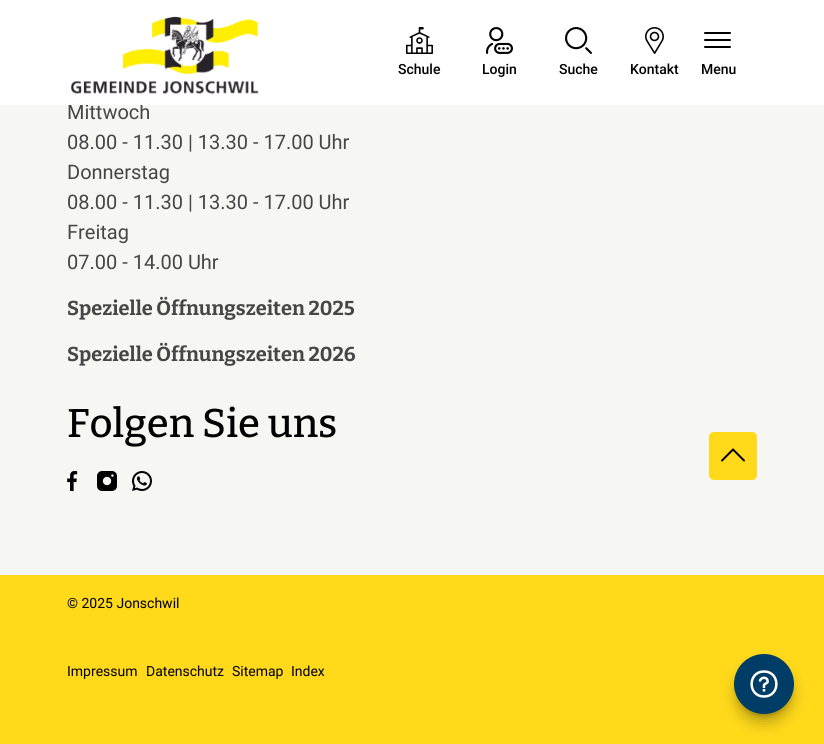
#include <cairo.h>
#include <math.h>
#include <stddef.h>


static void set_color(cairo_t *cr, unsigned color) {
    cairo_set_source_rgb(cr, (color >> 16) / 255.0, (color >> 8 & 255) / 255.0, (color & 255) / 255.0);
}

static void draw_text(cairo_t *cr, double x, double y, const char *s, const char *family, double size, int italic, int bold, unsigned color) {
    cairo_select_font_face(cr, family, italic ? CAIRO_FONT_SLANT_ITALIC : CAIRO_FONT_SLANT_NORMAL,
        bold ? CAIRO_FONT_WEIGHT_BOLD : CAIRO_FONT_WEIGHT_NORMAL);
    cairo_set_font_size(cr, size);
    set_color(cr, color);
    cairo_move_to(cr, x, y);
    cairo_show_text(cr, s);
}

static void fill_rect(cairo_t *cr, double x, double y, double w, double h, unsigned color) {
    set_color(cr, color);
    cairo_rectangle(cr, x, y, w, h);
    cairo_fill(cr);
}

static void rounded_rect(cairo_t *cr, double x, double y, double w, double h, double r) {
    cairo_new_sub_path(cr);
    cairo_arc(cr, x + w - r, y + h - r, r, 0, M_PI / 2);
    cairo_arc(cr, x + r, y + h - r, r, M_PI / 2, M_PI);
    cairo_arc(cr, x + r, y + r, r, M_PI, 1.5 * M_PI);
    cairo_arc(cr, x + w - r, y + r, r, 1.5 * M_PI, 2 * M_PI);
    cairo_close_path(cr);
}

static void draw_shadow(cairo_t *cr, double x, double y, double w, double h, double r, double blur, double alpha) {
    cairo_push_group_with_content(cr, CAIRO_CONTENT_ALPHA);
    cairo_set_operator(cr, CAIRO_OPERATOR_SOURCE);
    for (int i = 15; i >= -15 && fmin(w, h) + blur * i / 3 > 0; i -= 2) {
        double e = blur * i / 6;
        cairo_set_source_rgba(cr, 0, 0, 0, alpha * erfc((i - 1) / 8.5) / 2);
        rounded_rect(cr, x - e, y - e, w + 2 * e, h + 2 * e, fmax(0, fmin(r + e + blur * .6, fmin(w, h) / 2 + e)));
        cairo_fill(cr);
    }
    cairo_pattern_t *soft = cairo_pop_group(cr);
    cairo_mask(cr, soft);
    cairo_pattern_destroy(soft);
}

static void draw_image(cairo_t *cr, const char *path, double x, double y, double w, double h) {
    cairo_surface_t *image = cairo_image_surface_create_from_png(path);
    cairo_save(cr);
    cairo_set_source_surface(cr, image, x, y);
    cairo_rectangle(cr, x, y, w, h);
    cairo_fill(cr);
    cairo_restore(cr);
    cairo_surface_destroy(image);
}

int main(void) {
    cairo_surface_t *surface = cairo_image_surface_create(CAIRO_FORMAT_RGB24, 824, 744);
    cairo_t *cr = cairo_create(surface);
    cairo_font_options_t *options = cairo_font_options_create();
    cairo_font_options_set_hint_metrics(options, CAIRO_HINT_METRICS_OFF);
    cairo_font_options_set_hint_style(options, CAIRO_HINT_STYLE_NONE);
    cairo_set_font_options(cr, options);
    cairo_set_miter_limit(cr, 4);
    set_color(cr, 0xF6F6F3);
    cairo_paint(cr);
    draw_text(cr, 67, 119, "Mittwoch", "Roboto", 20, 0, 0, 0x464646);
    fill_rect(cr, 0, 0, 824, 105, 0xFFFFFF);
    draw_image(cr, "assets/img1.png", 71, 16, 188, 78);
    draw_image(cr, "assets/img2.png", 406, 27, 27, 27);
    draw_text(cr, 398, 74, "Schule", "Roboto Medium", 14, 0, 0, 0x000000);
    draw_image(cr, "assets/img3.png", 486, 27, 27, 27);
    draw_text(cr, 482, 74, "Login", "Roboto Medium", 14, 0, 0, 0x000000);
    draw_image(cr, "assets/img4.png", 565, 27, 27, 27);
    draw_text(cr, 559, 74, "Suche", "Roboto Medium", 14, 0, 0, 0x000000);
    draw_image(cr, "assets/img5.png", 645, 27, 19, 27);
    draw_text(cr, 630, 74, "Kontakt", "Roboto Medium", 14, 0, 0, 0x000000);
    rounded_rect(cr, 704, 32, 27, 2, 1);
    cairo_fill(cr);
    rounded_rect(cr, 704, 39, 27, 2, 1);
    cairo_fill(cr);
    rounded_rect(cr, 704, 46, 27, 2, 1);
    cairo_fill(cr);
    draw_text(cr, 701, 74, "Menu", "Roboto Medium", 14, 0, 0, 0x000000);
    draw_text(cr, 67, 149, "08.00 - 11.30 | 13.30 - 17.00 Uhr", "Roboto", 20, 0, 0, 0x464646);
    draw_text(cr, 67, 179, "Donnerstag", "Roboto", 20, 0, 0, 0x464646);
    draw_text(cr, 67, 209, "08.00 - 11.30 | 13.30 - 17.00 Uhr", "Roboto", 20, 0, 0, 0x464646);
    draw_text(cr, 67, 239, "Freitag", "Roboto", 20, 0, 0, 0x464646);
    draw_text(cr, 67, 269, "07.00 - 14.00 Uhr", "Roboto", 20, 0, 0, 0x464646);
    draw_text(cr, 67, 315, "Spezielle Öffnungszeiten 2025", "Bitter", 20, 0, 1, 0x464646);
    draw_text(cr, 67, 361, "Spezielle Öffnungszeiten 2026", "Bitter", 20, 0, 1, 0x464646);
    draw_text(cr, 67, 437, "Folgen Sie uns", "Bitter Medium", 40, 0, 0, 0x000000);
    draw_image(cr, "assets/img6.png", 67, 471, 11, 20);
    draw_image(cr, "assets/img7.png", 97, 471, 20, 20);
    draw_image(cr, "assets/img8.png", 132, 471, 20, 20);
    set_color(cr, 0xFFD91A);
    rounded_rect(cr, 709, 432, 48, 48, 5);
    cairo_fill(cr);
    draw_image(cr, "assets/img9.png", 721, 448, 24, 14);
    fill_rect(cr, 0, 575, 824, 169, 0xFFD91A);
    draw_text(cr, 67, 608, "© 2025 Jonschwil", "Roboto", 14, 0, 0, 0x000000);
    draw_text(cr, 67, 676, "Impressum", "Roboto", 14, 0, 0, 0x000000);
    draw_text(cr, 146, 676, "Datenschutz", "Roboto", 14, 0, 0, 0x000000);
    draw_text(cr, 232, 676, "Sitemap", "Roboto", 14, 0, 0, 0x000000);
    draw_text(cr, 291, 676, "Index", "Roboto", 14, 0, 0, 0x000000);
    set_color(cr, 0x000000);
    draw_shadow(cr, 738, 662, 52, 52, 26, 3, 0.3);
    draw_shadow(cr, 737, 667, 54, 54, 27, 7.5, 0.3);
    set_color(cr, 0x003D66);
    cairo_arc(cr, 764, 684, 30, 0, 2 * M_PI);
    cairo_fill(cr);
    cairo_new_path(cr);
    cairo_move_to(cr, 764, 696.5);
    cairo_curve_to(cr, 780.5, 696.5, 780.5, 671.5, 764, 671.5);
    cairo_curve_to(cr, 747.5, 671.5, 747.5, 696.5, 764, 696.5);
    cairo_close_path(cr);
    cairo_move_to(cr, 764, 688);
    cairo_line_to(cr, 764, 685);
    cairo_curve_to(cr, 765, 683, 768.5, 683.5, 767.5, 680.5);
    cairo_curve_to(cr, 767, 676.5, 760, 677, 760, 681.5);
    cairo_move_to(cr, 764, 689);
    cairo_line_to(cr, 764, 691.5);
    set_color(cr, 0xFFFFFF);
    cairo_set_line_width(cr, 2.5);
    cairo_stroke(cr);
    cairo_surface_write_to_png(surface, "output.png");
    cairo_font_options_destroy(options);
    cairo_destroy(cr);
    cairo_surface_destroy(surface);
    return 0;
}
